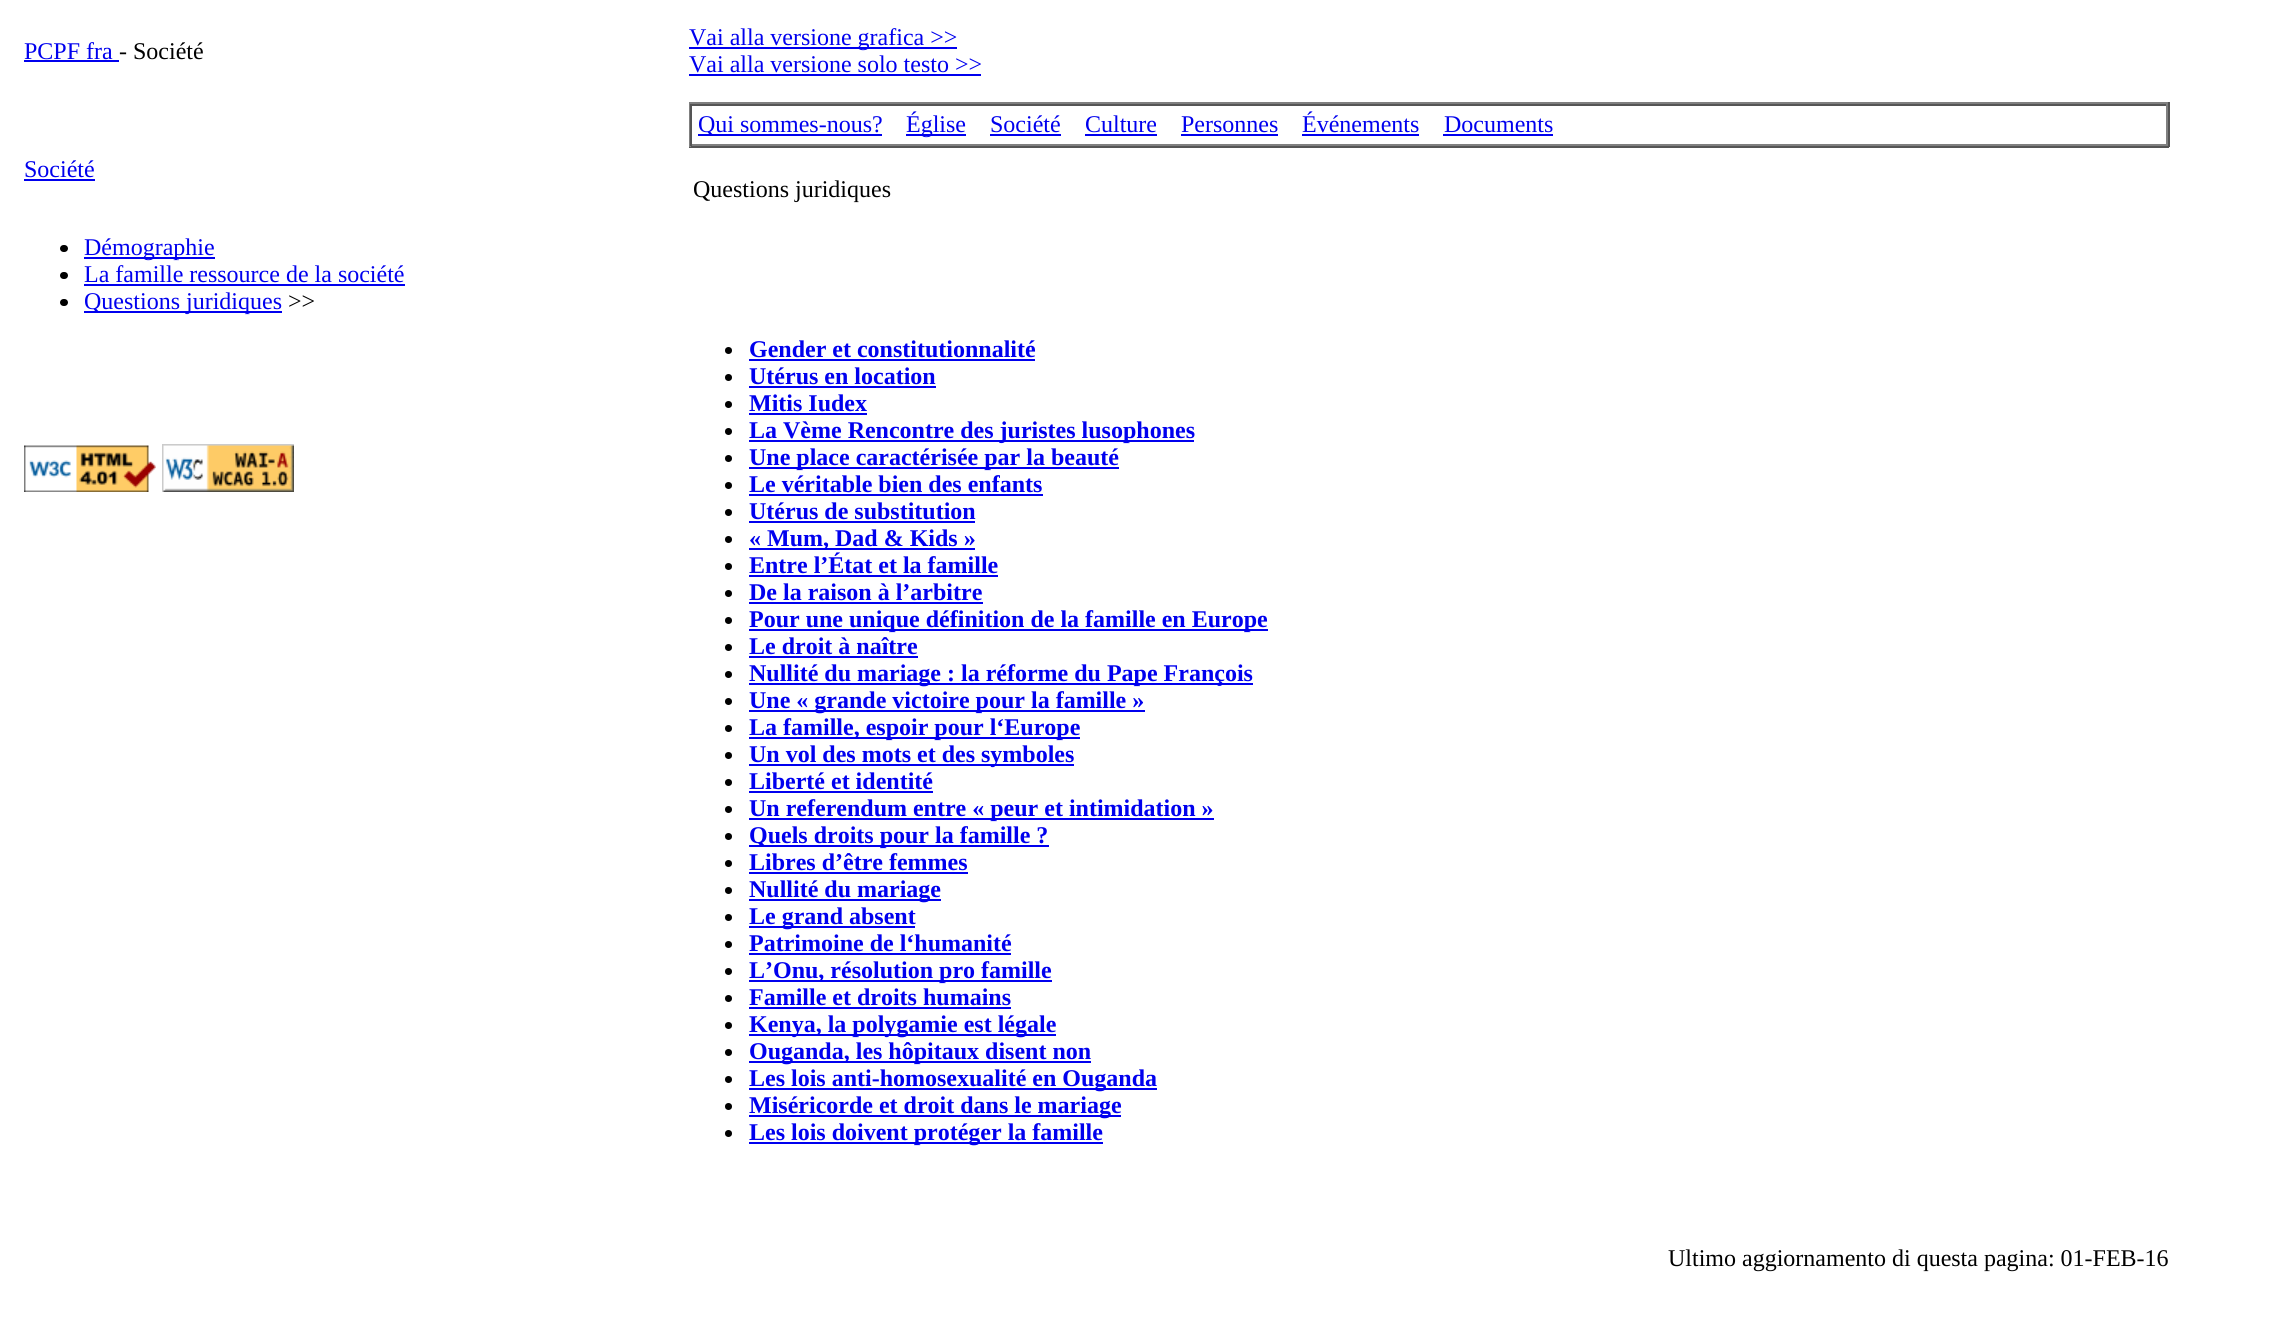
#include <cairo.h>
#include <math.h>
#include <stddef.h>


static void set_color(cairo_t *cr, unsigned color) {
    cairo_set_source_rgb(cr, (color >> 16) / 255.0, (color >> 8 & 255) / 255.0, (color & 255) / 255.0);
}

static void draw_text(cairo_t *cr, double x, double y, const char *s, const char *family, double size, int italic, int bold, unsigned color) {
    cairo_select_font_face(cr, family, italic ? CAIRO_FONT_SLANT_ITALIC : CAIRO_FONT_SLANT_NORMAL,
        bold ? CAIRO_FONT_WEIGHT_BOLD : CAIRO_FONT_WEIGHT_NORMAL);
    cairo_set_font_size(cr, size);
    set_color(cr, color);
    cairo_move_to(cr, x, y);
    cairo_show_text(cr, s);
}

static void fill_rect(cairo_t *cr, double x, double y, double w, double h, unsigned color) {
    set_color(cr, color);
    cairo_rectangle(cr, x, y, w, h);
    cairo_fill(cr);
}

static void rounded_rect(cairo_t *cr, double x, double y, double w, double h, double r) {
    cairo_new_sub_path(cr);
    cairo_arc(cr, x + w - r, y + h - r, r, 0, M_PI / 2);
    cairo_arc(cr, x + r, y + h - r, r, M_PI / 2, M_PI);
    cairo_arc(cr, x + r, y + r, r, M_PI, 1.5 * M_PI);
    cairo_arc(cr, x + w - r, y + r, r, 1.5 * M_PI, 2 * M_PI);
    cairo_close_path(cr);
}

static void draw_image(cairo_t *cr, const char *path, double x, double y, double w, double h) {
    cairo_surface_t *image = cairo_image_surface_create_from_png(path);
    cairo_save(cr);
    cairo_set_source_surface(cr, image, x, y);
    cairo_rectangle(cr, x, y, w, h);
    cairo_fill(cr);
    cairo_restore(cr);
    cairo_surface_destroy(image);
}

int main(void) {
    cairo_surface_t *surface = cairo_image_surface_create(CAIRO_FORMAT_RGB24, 2283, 1344);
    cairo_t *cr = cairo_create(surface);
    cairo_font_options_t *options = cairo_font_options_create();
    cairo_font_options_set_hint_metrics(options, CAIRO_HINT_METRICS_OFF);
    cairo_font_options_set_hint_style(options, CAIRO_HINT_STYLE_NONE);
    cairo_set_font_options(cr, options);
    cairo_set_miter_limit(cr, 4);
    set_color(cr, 0xFFFFFF);
    cairo_paint(cr);
    draw_text(cr, 24, 59, "PCPF fra", "Liberation Serif", 24, 0, 0, 0x0000EE);
    fill_rect(cr, 24, 60, 95, 2, 0x0000EE);
    draw_text(cr, 119, 59, "- Société", "Liberation Serif", 24, 0, 0, 0x000000);
    fill_rect(cr, 689, 47, 268, 2, 0x0000EE);
    draw_text(cr, 689, 45, "Vai alla versione grafica >>", "Liberation Serif", 24, 0, 0, 0x0000EE);
    draw_text(cr, 689, 72, "Vai alla versione solo testo >>", "Liberation Serif", 24, 0, 0, 0x0000EE);
    fill_rect(cr, 689, 74, 292, 2, 0x0000EE);
    fill_rect(cr, 689, 102, 1480, 2, 0x808080);
    fill_rect(cr, 2168, 102, 2, 45, 0x555555);
    fill_rect(cr, 689, 146, 1480, 2, 0x555555);
    fill_rect(cr, 689, 102, 2, 45, 0x808080);
    fill_rect(cr, 690, 104, 1478, 2, 0x555555);
    fill_rect(cr, 2166, 104, 2, 42, 0x808080);
    fill_rect(cr, 690, 144, 1478, 2, 0x808080);
    fill_rect(cr, 690, 104, 2, 42, 0x555555);
    fill_rect(cr, 698, 134, 184, 2, 0x0000EE);
    draw_text(cr, 698, 132, "Qui sommes-nous?", "Liberation Serif", 24, 0, 0, 0x0000EE);
    fill_rect(cr, 906, 134, 60, 2, 0x0000EE);
    draw_text(cr, 906, 132, "Église", "Liberation Serif", 24, 0, 0, 0x0000EE);
    draw_text(cr, 990, 132, "Société", "Liberation Serif", 24, 0, 0, 0x0000EE);
    fill_rect(cr, 990, 134, 71, 2, 0x0000EE);
    draw_text(cr, 1085, 132, "Culture", "Liberation Serif", 24, 0, 0, 0x0000EE);
    fill_rect(cr, 1085, 134, 72, 2, 0x0000EE);
    draw_text(cr, 1181, 132, "Personnes", "Liberation Serif", 24, 0, 0, 0x0000EE);
    fill_rect(cr, 1181, 134, 97, 2, 0x0000EE);
    draw_text(cr, 1302, 132, "Événements", "Liberation Serif", 24, 0, 0, 0x0000EE);
    fill_rect(cr, 1302, 134, 117, 2, 0x0000EE);
    draw_text(cr, 1444, 132, "Documents", "Liberation Serif", 24, 0, 0, 0x0000EE);
    fill_rect(cr, 1443, 134, 110, 2, 0x0000EE);
    draw_text(cr, 24, 177, "Société", "Liberation Serif", 24, 0, 0, 0x0000EE);
    fill_rect(cr, 24, 179, 71, 2, 0x0000EE);
    set_color(cr, 0x000000);
    rounded_rect(cr, 60, 245, 8, 7, 3.5);
    cairo_fill(cr);
    fill_rect(cr, 84, 257, 131, 2, 0x0000EE);
    draw_text(cr, 84, 255, "Démographie", "Liberation Serif", 24, 0, 0, 0x0000EE);
    set_color(cr, 0x000000);
    rounded_rect(cr, 60, 272, 8, 7, 3.5);
    cairo_fill(cr);
    draw_text(cr, 84, 282, "La famille ressource de la société", "Liberation Serif", 24, 0, 0, 0x0000EE);
    fill_rect(cr, 84, 284, 321, 2, 0x0000EE);
    set_color(cr, 0x000000);
    rounded_rect(cr, 60, 299, 8, 7, 3.5);
    cairo_fill(cr);
    fill_rect(cr, 84, 311, 198, 2, 0x0000EE);
    draw_text(cr, 84, 309, "Questions juridiques", "Liberation Serif", 24, 0, 0, 0x0000EE);
    draw_text(cr, 288, 309, ">>", "Liberation Serif", 24, 0, 0, 0x000000);
    draw_image(cr, "assets/img1.png", 24, 445, 132, 47);
    draw_image(cr, "assets/img2.png", 162, 444, 132, 48);
    draw_text(cr, 693, 197, "Questions juridiques", "Liberation Serif", 24, 0, 0, 0x000000);
    cairo_new_path(cr);
    cairo_arc(cr, 728.5, 350.5, 3.5, 0, 2 * M_PI);
    cairo_fill(cr);
    draw_text(cr, 749, 357, "Gender et constitutionnalité", "Liberation Serif", 24, 0, 1, 0x0000EE);
    fill_rect(cr, 749, 359, 286, 2, 0x0000EE);
    set_color(cr, 0x000000);
    cairo_new_path(cr);
    cairo_arc(cr, 728.5, 377.5, 3.5, 0, 2 * M_PI);
    cairo_fill(cr);
    draw_text(cr, 749, 384, "Utérus en location", "Liberation Serif", 24, 0, 1, 0x0000EE);
    fill_rect(cr, 749, 386, 187, 2, 0x0000EE);
    set_color(cr, 0x000000);
    cairo_new_path(cr);
    cairo_arc(cr, 728.5, 404.5, 3.5, 0, 2 * M_PI);
    cairo_fill(cr);
    draw_text(cr, 749, 411, "Mitis Iudex", "Liberation Serif", 24, 0, 1, 0x0000EE);
    fill_rect(cr, 749, 413, 118, 2, 0x0000EE);
    set_color(cr, 0x000000);
    cairo_new_path(cr);
    cairo_arc(cr, 728.5, 431.5, 3.5, 0, 2 * M_PI);
    cairo_fill(cr);
    fill_rect(cr, 749, 440, 445, 2, 0x0000EE);
    draw_text(cr, 749, 438, "La Vème Rencontre des juristes lusophones", "Liberation Serif", 24, 0, 1, 0x0000EE);
    set_color(cr, 0x000000);
    cairo_new_path(cr);
    cairo_arc(cr, 728.5, 458.5, 3.5, 0, 2 * M_PI);
    cairo_fill(cr);
    fill_rect(cr, 749, 467, 370, 2, 0x0000EE);
    draw_text(cr, 749, 465, "Une place caractérisée par la beauté", "Liberation Serif", 24, 0, 1, 0x0000EE);
    set_color(cr, 0x000000);
    cairo_new_path(cr);
    cairo_arc(cr, 728.5, 485.5, 3.5, 0, 2 * M_PI);
    cairo_fill(cr);
    draw_text(cr, 749, 492, "Le véritable bien des enfants", "Liberation Serif", 24, 0, 1, 0x0000EE);
    fill_rect(cr, 749, 494, 294, 2, 0x0000EE);
    set_color(cr, 0x000000);
    cairo_new_path(cr);
    cairo_arc(cr, 728.5, 512.5, 3.5, 0, 2 * M_PI);
    cairo_fill(cr);
    draw_text(cr, 749, 519, "Utérus de substitution", "Liberation Serif", 24, 0, 1, 0x0000EE);
    fill_rect(cr, 749, 521, 226, 2, 0x0000EE);
    set_color(cr, 0x000000);
    cairo_new_path(cr);
    cairo_arc(cr, 728.5, 539.5, 3.5, 0, 2 * M_PI);
    cairo_fill(cr);
    fill_rect(cr, 749, 548, 226, 2, 0x0000EE);
    draw_text(cr, 749, 546, "« Mum, Dad & Kids »", "Liberation Serif", 24, 0, 1, 0x0000EE);
    set_color(cr, 0x000000);
    cairo_new_path(cr);
    cairo_arc(cr, 728.5, 566.5, 3.5, 0, 2 * M_PI);
    cairo_fill(cr);
    draw_text(cr, 749, 573, "Entre l’État et la famille", "Liberation Serif", 24, 0, 1, 0x0000EE);
    fill_rect(cr, 749, 575, 249, 2, 0x0000EE);
    set_color(cr, 0x000000);
    cairo_new_path(cr);
    cairo_arc(cr, 728.5, 593.5, 3.5, 0, 2 * M_PI);
    cairo_fill(cr);
    draw_text(cr, 749, 600, "De la raison à l’arbitre", "Liberation Serif", 24, 0, 1, 0x0000EE);
    fill_rect(cr, 749, 602, 234, 2, 0x0000EE);
    set_color(cr, 0x000000);
    cairo_new_path(cr);
    cairo_arc(cr, 728.5, 620.5, 3.5, 0, 2 * M_PI);
    cairo_fill(cr);
    fill_rect(cr, 749, 629, 519, 2, 0x0000EE);
    draw_text(cr, 749, 627, "Pour une unique définition de la famille en Europe", "Liberation Serif", 24, 0, 1, 0x0000EE);
    set_color(cr, 0x000000);
    cairo_new_path(cr);
    cairo_arc(cr, 728.5, 647.5, 3.5, 0, 2 * M_PI);
    cairo_fill(cr);
    draw_text(cr, 749, 654, "Le droit à naître", "Liberation Serif", 24, 0, 1, 0x0000EE);
    fill_rect(cr, 749, 656, 169, 2, 0x0000EE);
    set_color(cr, 0x000000);
    cairo_new_path(cr);
    cairo_arc(cr, 728.5, 674.5, 3.5, 0, 2 * M_PI);
    cairo_fill(cr);
    fill_rect(cr, 749, 683, 504, 2, 0x0000EE);
    draw_text(cr, 749, 681, "Nullité du mariage : la réforme du Pape François", "Liberation Serif", 24, 0, 1, 0x0000EE);
    set_color(cr, 0x000000);
    cairo_new_path(cr);
    cairo_arc(cr, 728.5, 701.5, 3.5, 0, 2 * M_PI);
    cairo_fill(cr);
    fill_rect(cr, 749, 710, 396, 2, 0x0000EE);
    draw_text(cr, 749, 708, "Une « grande victoire pour la famille »", "Liberation Serif", 24, 0, 1, 0x0000EE);
    set_color(cr, 0x000000);
    cairo_new_path(cr);
    cairo_arc(cr, 728.5, 728.5, 3.5, 0, 2 * M_PI);
    cairo_fill(cr);
    fill_rect(cr, 749, 737, 331, 2, 0x0000EE);
    draw_text(cr, 749, 735, "La famille, espoir pour l‘Europe", "Liberation Serif", 24, 0, 1, 0x0000EE);
    set_color(cr, 0x000000);
    cairo_new_path(cr);
    cairo_arc(cr, 728.5, 755.5, 3.5, 0, 2 * M_PI);
    cairo_fill(cr);
    fill_rect(cr, 749, 764, 325, 2, 0x0000EE);
    draw_text(cr, 749, 762, "Un vol des mots et des symboles", "Liberation Serif", 24, 0, 1, 0x0000EE);
    set_color(cr, 0x000000);
    cairo_new_path(cr);
    cairo_arc(cr, 728.5, 782.5, 3.5, 0, 2 * M_PI);
    cairo_fill(cr);
    draw_text(cr, 749, 789, "Liberté et identité", "Liberation Serif", 24, 0, 1, 0x0000EE);
    fill_rect(cr, 749, 791, 184, 2, 0x0000EE);
    set_color(cr, 0x000000);
    cairo_new_path(cr);
    cairo_arc(cr, 728.5, 809.5, 3.5, 0, 2 * M_PI);
    cairo_fill(cr);
    fill_rect(cr, 749, 818, 465, 2, 0x0000EE);
    draw_text(cr, 749, 816, "Un referendum entre « peur et intimidation »", "Liberation Serif", 24, 0, 1, 0x0000EE);
    set_color(cr, 0x000000);
    cairo_new_path(cr);
    cairo_arc(cr, 728.5, 836.5, 3.5, 0, 2 * M_PI);
    cairo_fill(cr);
    fill_rect(cr, 749, 845, 300, 2, 0x0000EE);
    draw_text(cr, 749, 843, "Quels droits pour la famille ?", "Liberation Serif", 24, 0, 1, 0x0000EE);
    set_color(cr, 0x000000);
    cairo_new_path(cr);
    cairo_arc(cr, 728.5, 863.5, 3.5, 0, 2 * M_PI);
    cairo_fill(cr);
    draw_text(cr, 749, 870, "Libres d’être femmes", "Liberation Serif", 24, 0, 1, 0x0000EE);
    fill_rect(cr, 749, 872, 219, 2, 0x0000EE);
    set_color(cr, 0x000000);
    cairo_new_path(cr);
    cairo_arc(cr, 728.5, 890.5, 3.5, 0, 2 * M_PI);
    cairo_fill(cr);
    fill_rect(cr, 749, 899, 192, 2, 0x0000EE);
    draw_text(cr, 749, 897, "Nullité du mariage", "Liberation Serif", 24, 0, 1, 0x0000EE);
    set_color(cr, 0x000000);
    cairo_new_path(cr);
    cairo_arc(cr, 728.5, 917.5, 3.5, 0, 2 * M_PI);
    cairo_fill(cr);
    fill_rect(cr, 749, 926, 166, 2, 0x0000EE);
    draw_text(cr, 749, 924, "Le grand absent", "Liberation Serif", 24, 0, 1, 0x0000EE);
    set_color(cr, 0x000000);
    cairo_new_path(cr);
    cairo_arc(cr, 728.5, 944.5, 3.5, 0, 2 * M_PI);
    cairo_fill(cr);
    draw_text(cr, 749, 951, "Patrimoine de l‘humanité", "Liberation Serif", 24, 0, 1, 0x0000EE);
    fill_rect(cr, 749, 953, 262, 2, 0x0000EE);
    set_color(cr, 0x000000);
    cairo_new_path(cr);
    cairo_arc(cr, 728.5, 971.5, 3.5, 0, 2 * M_PI);
    cairo_fill(cr);
    fill_rect(cr, 749, 980, 303, 2, 0x0000EE);
    draw_text(cr, 749, 978, "L’Onu, résolution pro famille", "Liberation Serif", 24, 0, 1, 0x0000EE);
    set_color(cr, 0x000000);
    cairo_new_path(cr);
    cairo_arc(cr, 728.5, 998.5, 3.5, 0, 2 * M_PI);
    cairo_fill(cr);
    draw_text(cr, 749, 1005, "Famille et droits humains", "Liberation Serif", 24, 0, 1, 0x0000EE);
    fill_rect(cr, 749, 1007, 262, 2, 0x0000EE);
    set_color(cr, 0x000000);
    cairo_new_path(cr);
    cairo_arc(cr, 728.5, 1025.5, 3.5, 0, 2 * M_PI);
    cairo_fill(cr);
    fill_rect(cr, 749, 1034, 307, 2, 0x0000EE);
    draw_text(cr, 749, 1032, "Kenya, la polygamie est légale", "Liberation Serif", 24, 0, 1, 0x0000EE);
    set_color(cr, 0x000000);
    cairo_new_path(cr);
    cairo_arc(cr, 728.5, 1052.5, 3.5, 0, 2 * M_PI);
    cairo_fill(cr);
    fill_rect(cr, 749, 1061, 342, 2, 0x0000EE);
    draw_text(cr, 749, 1059, "Ouganda, les hôpitaux disent non", "Liberation Serif", 24, 0, 1, 0x0000EE);
    set_color(cr, 0x000000);
    cairo_new_path(cr);
    cairo_arc(cr, 728.5, 1079.5, 3.5, 0, 2 * M_PI);
    cairo_fill(cr);
    fill_rect(cr, 749, 1088, 408, 2, 0x0000EE);
    draw_text(cr, 749, 1086, "Les lois anti-homosexualité en Ouganda", "Liberation Serif", 24, 0, 1, 0x0000EE);
    set_color(cr, 0x000000);
    cairo_new_path(cr);
    cairo_arc(cr, 728.5, 1106.5, 3.5, 0, 2 * M_PI);
    cairo_fill(cr);
    fill_rect(cr, 749, 1115, 372, 2, 0x0000EE);
    draw_text(cr, 749, 1113, "Miséricorde et droit dans le mariage", "Liberation Serif", 24, 0, 1, 0x0000EE);
    set_color(cr, 0x000000);
    cairo_new_path(cr);
    cairo_arc(cr, 728.5, 1133.5, 3.5, 0, 2 * M_PI);
    cairo_fill(cr);
    fill_rect(cr, 749, 1142, 354, 2, 0x0000EE);
    draw_text(cr, 749, 1140, "Les lois doivent protéger la famille", "Liberation Serif", 24, 0, 1, 0x0000EE);
    draw_text(cr, 1668, 1266, "Ultimo aggiornamento di questa pagina: 01-FEB-16", "Liberation Serif", 24, 0, 0, 0x000000);
    cairo_surface_write_to_png(surface, "output.png");
    cairo_font_options_destroy(options);
    cairo_destroy(cr);
    cairo_surface_destroy(surface);
    return 0;
}
